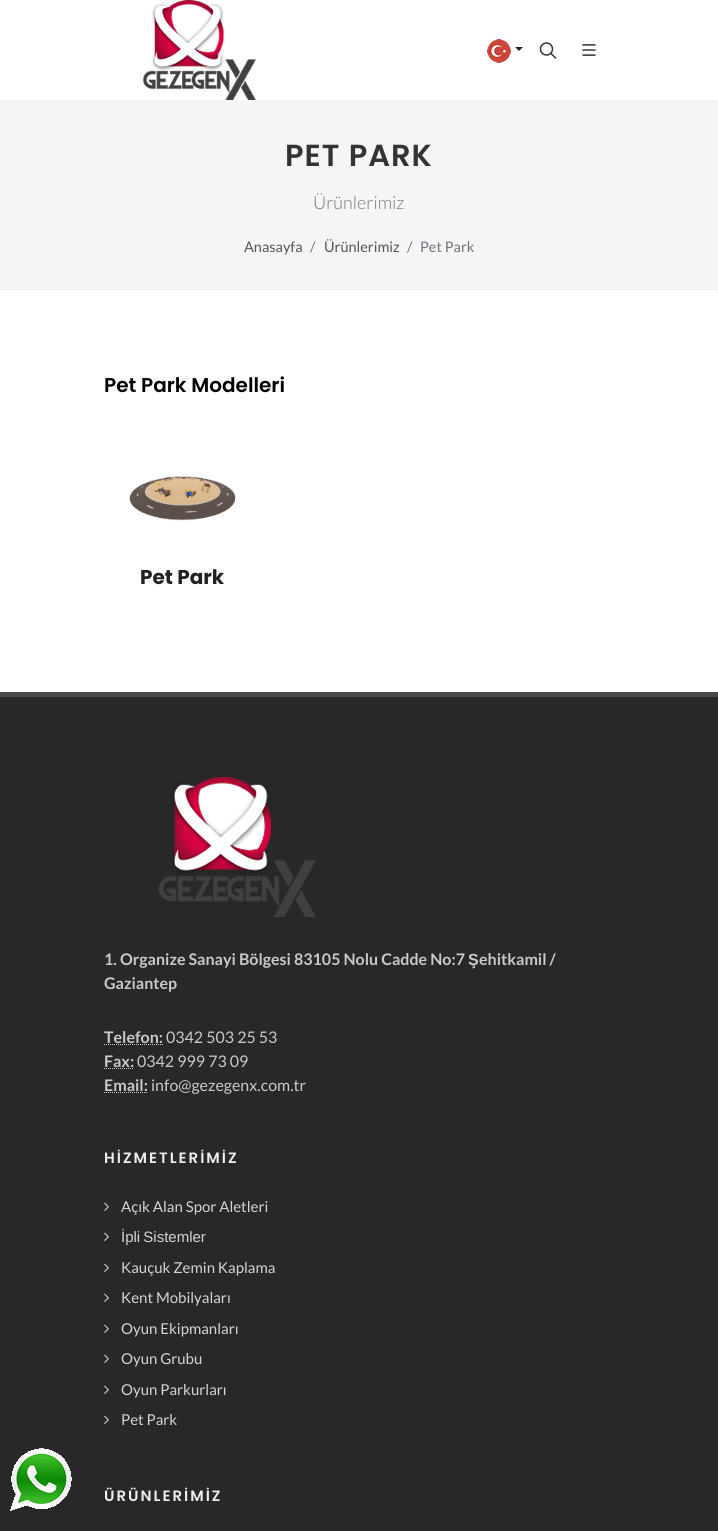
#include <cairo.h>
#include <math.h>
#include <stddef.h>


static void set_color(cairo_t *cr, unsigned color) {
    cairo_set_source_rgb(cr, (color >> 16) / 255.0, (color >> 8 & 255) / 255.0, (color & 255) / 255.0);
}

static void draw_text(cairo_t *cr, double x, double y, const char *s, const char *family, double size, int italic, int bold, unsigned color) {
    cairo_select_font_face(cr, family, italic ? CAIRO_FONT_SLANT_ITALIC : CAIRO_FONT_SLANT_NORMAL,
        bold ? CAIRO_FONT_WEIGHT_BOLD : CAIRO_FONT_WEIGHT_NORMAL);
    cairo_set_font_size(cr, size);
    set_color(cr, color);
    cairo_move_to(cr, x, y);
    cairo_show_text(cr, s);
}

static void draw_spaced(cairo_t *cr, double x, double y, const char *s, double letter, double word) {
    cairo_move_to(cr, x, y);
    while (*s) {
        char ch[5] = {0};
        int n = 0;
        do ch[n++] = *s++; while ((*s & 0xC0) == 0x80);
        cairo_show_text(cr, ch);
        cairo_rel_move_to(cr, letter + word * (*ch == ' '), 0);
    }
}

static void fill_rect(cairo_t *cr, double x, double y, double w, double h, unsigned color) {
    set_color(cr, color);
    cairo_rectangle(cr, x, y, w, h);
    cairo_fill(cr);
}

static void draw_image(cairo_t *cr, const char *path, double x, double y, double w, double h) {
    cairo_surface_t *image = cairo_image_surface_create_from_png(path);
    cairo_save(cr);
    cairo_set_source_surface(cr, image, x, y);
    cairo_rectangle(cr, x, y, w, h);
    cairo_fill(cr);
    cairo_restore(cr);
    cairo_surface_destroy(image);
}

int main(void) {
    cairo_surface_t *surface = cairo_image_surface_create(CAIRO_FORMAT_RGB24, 718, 1531);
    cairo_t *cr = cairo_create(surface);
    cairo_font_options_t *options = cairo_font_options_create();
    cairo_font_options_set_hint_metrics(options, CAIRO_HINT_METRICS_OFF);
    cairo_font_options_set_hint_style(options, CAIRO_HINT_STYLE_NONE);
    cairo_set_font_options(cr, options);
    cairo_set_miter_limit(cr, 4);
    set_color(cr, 0xFFFFFF);
    cairo_paint(cr);
    fill_rect(cr, 0, 697, 718, 834, 0x282828);
    draw_image(cr, "assets/img1.png", 10, 1448, 62, 63);
    fill_rect(cr, 0, 100, 718, 189, 0xF5F5F5);
    draw_image(cr, "assets/img2.png", 143, 0, 113, 100);
    draw_image(cr, "assets/img3.png", 487, 39, 24, 24);
    set_color(cr, 0x212529);
    cairo_new_path(cr);
    cairo_move_to(cr, 515, 47);
    cairo_line_to(cr, 523, 47);
    cairo_line_to(cr, 519, 51);
    cairo_close_path(cr);
    cairo_fill(cr);
    draw_image(cr, "assets/img4.png", 539, 42, 18, 17);
    draw_image(cr, "assets/img5.png", 582, 44, 14, 12);
    fill_rect(cr, 0, 289, 718, 1, 0xEEEEEE);
    cairo_select_font_face(cr, "Poppins SemiBold", CAIRO_FONT_SLANT_NORMAL, CAIRO_FONT_WEIGHT_NORMAL);
    cairo_set_font_size(cr, 30.5);
    set_color(cr, 0x333333);
    draw_spaced(cr, 285, 166, "PET PARK", 1, 0);
    draw_text(cr, 313, 209, "Ürünlerimiz", "Lato Light", 18, 0, 0, 0x777777);
    draw_text(cr, 244, 252, "Anasayfa", "Lato", 14.5, 0, 0, 0x555555);
    draw_text(cr, 310, 252, "/", "Lato", 14.5, 0, 0, 0x6C757D);
    draw_text(cr, 324, 252, "Ürünlerimiz", "Lato", 14.5, 0, 0, 0x555555);
    draw_text(cr, 407, 252, "/", "Lato", 14.5, 0, 0, 0x6C757D);
    draw_text(cr, 420, 252, "Pet Park", "Lato", 14.5, 0, 0, 0x6C757D);
    draw_text(cr, 104, 392, "Pet Park Modelleri", "Poppins SemiBold", 20, 0, 0, 0x000000);
    draw_image(cr, "assets/img6.png", 129, 476, 107, 45);
    draw_text(cr, 140, 584, "Pet Park", "Poppins", 20, 0, 1, 0x222222);
    fill_rect(cr, 0, 692, 718, 5, 0x484848);
    draw_image(cr, "assets/img7.png", 159, 777, 157, 140);
    draw_text(cr, 104, 965, "1. Organize Sanayi Bölgesi 83105 Nolu Cadde No:7", "Lato", 16, 0, 1, 0xC9C9C9);
    draw_text(cr, 468, 965, "Ş", "Liberation Sans", 16, 0, 1, 0xC9C9C9);
    draw_text(cr, 479, 965, "ehitkamil /", "Lato", 16, 0, 1, 0xC9C9C9);
    draw_text(cr, 104, 989, "Gaziantep", "Lato", 16, 0, 1, 0xC9C9C9);
    draw_text(cr, 104, 1043, "Telefon:", "Lato", 16, 0, 1, 0xC9C9C9);
    cairo_new_path(cr);
    cairo_move_to(cr, 104, 1044.5);
    cairo_line_to(cr, 163, 1044.5);
    cairo_set_line_width(cr, 1);
    cairo_set_dash(cr, (double[]){1, 1}, 2, 0);
    cairo_stroke(cr);
    draw_text(cr, 166, 1043, "0342 503 25 53", "Lato", 16, 0, 0, 0xC9C9C9);
    draw_text(cr, 104, 1067, "Fax:", "Lato", 16, 0, 1, 0xC9C9C9);
    cairo_new_path(cr);
    cairo_move_to(cr, 104, 1068.5);
    cairo_line_to(cr, 134, 1068.5);
    cairo_stroke(cr);
    draw_text(cr, 137, 1067, "0342 999 73 09", "Lato", 16, 0, 0, 0xC9C9C9);
    draw_text(cr, 104, 1091, "Email:", "Lato", 16, 0, 1, 0xC9C9C9);
    cairo_new_path(cr);
    cairo_move_to(cr, 104, 1092.5);
    cairo_line_to(cr, 148, 1092.5);
    cairo_stroke(cr);
    draw_text(cr, 151, 1091, "info@gezegenx.com.tr", "Lato", 16, 0, 0, 0xC9C9C9);
    cairo_select_font_face(cr, "Poppins SemiBold", CAIRO_FONT_SLANT_NORMAL, CAIRO_FONT_WEIGHT_NORMAL);
    cairo_set_font_size(cr, 15);
    set_color(cr, 0xEEEEEE);
    draw_spaced(cr, 104, 1163, "HİZMETLERİMİZ", 2, 0);
    draw_image(cr, "assets/img8.png", 104, 1202, 5, 9);
    draw_text(cr, 121, 1212, "Açık Alan Spor Aletleri", "Lato", 15, 0, 0, 0xD4D4D4);
    draw_image(cr, "assets/img8.png", 104, 1232, 5, 9);
    cairo_select_font_face(cr, "Liberation Sans", CAIRO_FONT_SLANT_NORMAL, CAIRO_FONT_WEIGHT_NORMAL);
    draw_spaced(cr, 121, 1242, "İpli Sistemler", 0, -1);
    draw_image(cr, "assets/img8.png", 104, 1263, 5, 9);
    draw_text(cr, 121, 1273, "Kauçuk Zemin Kaplama", "Lato", 15, 0, 0, 0xD4D4D4);
    draw_image(cr, "assets/img8.png", 104, 1293, 5, 9);
    draw_text(cr, 121, 1303, "Kent Mobilyaları", "Lato", 15, 0, 0, 0xD4D4D4);
    draw_image(cr, "assets/img8.png", 104, 1324, 5, 9);
    draw_text(cr, 121, 1334, "Oyun Ekipmanları", "Lato", 15, 0, 0, 0xD4D4D4);
    draw_image(cr, "assets/img8.png", 104, 1354, 5, 9);
    draw_text(cr, 121, 1364, "Oyun Grubu", "Lato", 15, 0, 0, 0xD4D4D4);
    draw_image(cr, "assets/img8.png", 104, 1385, 5, 9);
    draw_text(cr, 121, 1395, "Oyun Parkurları", "Lato", 15, 0, 0, 0xD4D4D4);
    draw_image(cr, "assets/img8.png", 104, 1415, 5, 9);
    draw_text(cr, 121, 1425, "Pet Park", "Lato", 15, 0, 0, 0xD4D4D4);
    cairo_select_font_face(cr, "Poppins SemiBold", CAIRO_FONT_SLANT_NORMAL, CAIRO_FONT_WEIGHT_NORMAL);
    set_color(cr, 0xEEEEEE);
    draw_spaced(cr, 104, 1501, "ÜRÜNLERİMİZ", 2, 0);
    cairo_surface_write_to_png(surface, "output.png");
    cairo_font_options_destroy(options);
    cairo_destroy(cr);
    cairo_surface_destroy(surface);
    return 0;
}
